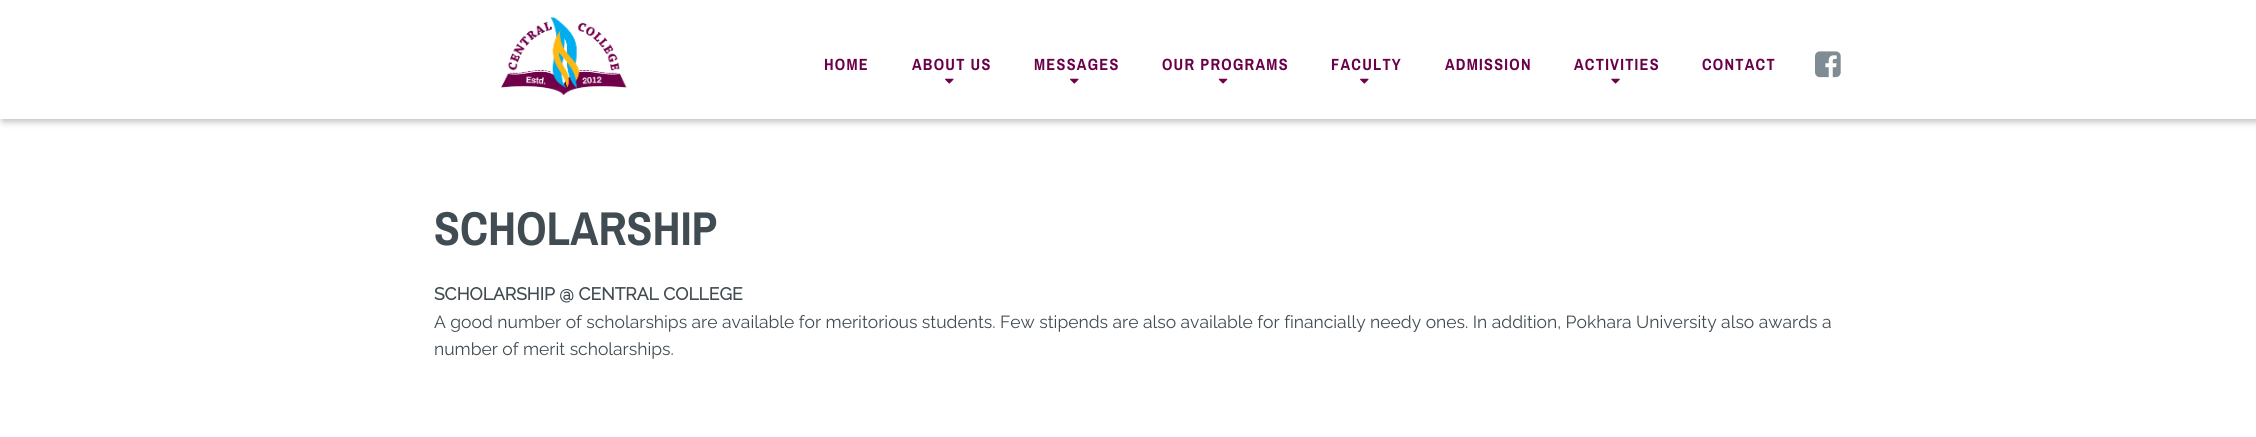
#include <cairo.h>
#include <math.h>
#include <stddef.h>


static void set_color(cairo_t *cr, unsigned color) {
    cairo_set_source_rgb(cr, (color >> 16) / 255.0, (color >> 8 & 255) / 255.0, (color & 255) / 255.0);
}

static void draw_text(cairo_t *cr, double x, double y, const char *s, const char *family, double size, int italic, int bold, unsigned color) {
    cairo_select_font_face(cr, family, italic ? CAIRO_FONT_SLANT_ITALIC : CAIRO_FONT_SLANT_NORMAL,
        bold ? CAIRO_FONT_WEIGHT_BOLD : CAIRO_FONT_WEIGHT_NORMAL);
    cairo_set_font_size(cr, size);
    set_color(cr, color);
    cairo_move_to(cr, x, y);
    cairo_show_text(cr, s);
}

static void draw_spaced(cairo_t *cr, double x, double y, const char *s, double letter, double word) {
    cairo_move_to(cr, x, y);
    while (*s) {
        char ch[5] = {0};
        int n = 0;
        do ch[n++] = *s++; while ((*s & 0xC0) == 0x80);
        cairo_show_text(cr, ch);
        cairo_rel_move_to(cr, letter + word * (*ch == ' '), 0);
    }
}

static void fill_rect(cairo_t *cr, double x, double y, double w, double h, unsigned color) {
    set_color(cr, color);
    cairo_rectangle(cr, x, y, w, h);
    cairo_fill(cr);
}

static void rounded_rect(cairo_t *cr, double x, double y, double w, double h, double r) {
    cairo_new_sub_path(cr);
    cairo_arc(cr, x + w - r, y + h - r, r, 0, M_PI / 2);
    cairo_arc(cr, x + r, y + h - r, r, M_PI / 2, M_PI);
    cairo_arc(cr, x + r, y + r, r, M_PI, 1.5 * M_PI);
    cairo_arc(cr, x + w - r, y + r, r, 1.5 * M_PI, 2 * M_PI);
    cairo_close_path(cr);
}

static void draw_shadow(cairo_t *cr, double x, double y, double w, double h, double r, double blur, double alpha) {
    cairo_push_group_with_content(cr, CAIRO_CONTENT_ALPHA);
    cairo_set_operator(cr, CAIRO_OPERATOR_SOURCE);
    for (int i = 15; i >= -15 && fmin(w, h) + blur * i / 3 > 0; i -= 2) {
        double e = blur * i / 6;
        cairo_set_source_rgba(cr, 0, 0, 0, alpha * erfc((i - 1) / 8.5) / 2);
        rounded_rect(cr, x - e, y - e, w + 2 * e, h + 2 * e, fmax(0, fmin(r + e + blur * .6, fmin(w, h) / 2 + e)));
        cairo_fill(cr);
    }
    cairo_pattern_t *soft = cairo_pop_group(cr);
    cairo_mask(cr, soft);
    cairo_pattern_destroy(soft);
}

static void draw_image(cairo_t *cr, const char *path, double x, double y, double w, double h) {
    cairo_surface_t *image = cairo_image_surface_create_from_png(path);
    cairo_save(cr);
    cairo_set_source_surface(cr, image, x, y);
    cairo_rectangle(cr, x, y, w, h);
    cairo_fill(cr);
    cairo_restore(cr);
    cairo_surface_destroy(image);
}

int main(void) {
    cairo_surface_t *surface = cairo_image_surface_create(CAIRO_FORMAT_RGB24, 2256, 437);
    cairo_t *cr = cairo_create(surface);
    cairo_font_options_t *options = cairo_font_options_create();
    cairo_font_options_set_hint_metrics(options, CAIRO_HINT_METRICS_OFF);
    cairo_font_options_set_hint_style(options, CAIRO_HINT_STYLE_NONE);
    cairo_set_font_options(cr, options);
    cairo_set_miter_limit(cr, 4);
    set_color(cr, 0xFFFFFF);
    cairo_paint(cr);
    set_color(cr, 0x000000);
    draw_shadow(cr, 3, 3, 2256, 118, 0, 4, 0.3);
    fill_rect(cr, 0, 0, 2256, 119, 0xFFFFFF);
    draw_image(cr, "assets/img1.png", 501, 17, 126, 78);
    cairo_select_font_face(cr, "Archivo Narrow", CAIRO_FONT_SLANT_NORMAL, CAIRO_FONT_WEIGHT_BOLD);
    cairo_set_font_size(cr, 16.25);
    set_color(cr, 0x6A0048);
    draw_spaced(cr, 824, 70, "HOME", 1.25, 0);
    draw_spaced(cr, 912, 70, "ABOUT US", 1.25, 0);
    draw_image(cr, "assets/img2.png", 945, 78, 9, 6);
    draw_spaced(cr, 1034, 70, "MESSAGES", 1.25, 0);
    draw_image(cr, "assets/img2.png", 1070, 78, 9, 6);
    draw_spaced(cr, 1162, 70, "OUR PROGRAMS", 1.25, 0);
    draw_image(cr, "assets/img3.png", 1218, 78, 10, 6);
    draw_spaced(cr, 1331, 70, "FACULTY", 1.25, 0);
    draw_image(cr, "assets/img2.png", 1360, 78, 9, 6);
    draw_spaced(cr, 1445, 70, "ADMISSION", 1.25, 0);
    draw_spaced(cr, 1574, 70, "ACTIVITIES", 1.25, 0);
    draw_image(cr, "assets/img4.png", 1611, 78, 9, 6);
    draw_spaced(cr, 1702, 70, "CONTACT", 1.25, 0);
    draw_image(cr, "assets/img5.png", 1815, 51, 26, 27);
    draw_text(cr, 434, 245, "SCHOLARSHIP", "Archivo Narrow", 47.5, 0, 1, 0x404B52);
    draw_text(cr, 434, 300, "SCHOLARSHIP @ CENTRAL COLLEGE", "Raleway", 17.5, 0, 1, 0x404B52);
    draw_text(cr, 434, 328, "A good number of scholarships are available for meritorious students. Few stipends are also available for financially needy ones. In addition, Pokhara University also awards a", "Raleway Thin", 17.5, 0, 0, 0x404B52);
    draw_text(cr, 434, 355, "number of merit scholarships.", "Raleway Thin", 17.5, 0, 0, 0x404B52);
    cairo_surface_write_to_png(surface, "output.png");
    cairo_font_options_destroy(options);
    cairo_destroy(cr);
    cairo_surface_destroy(surface);
    return 0;
}
